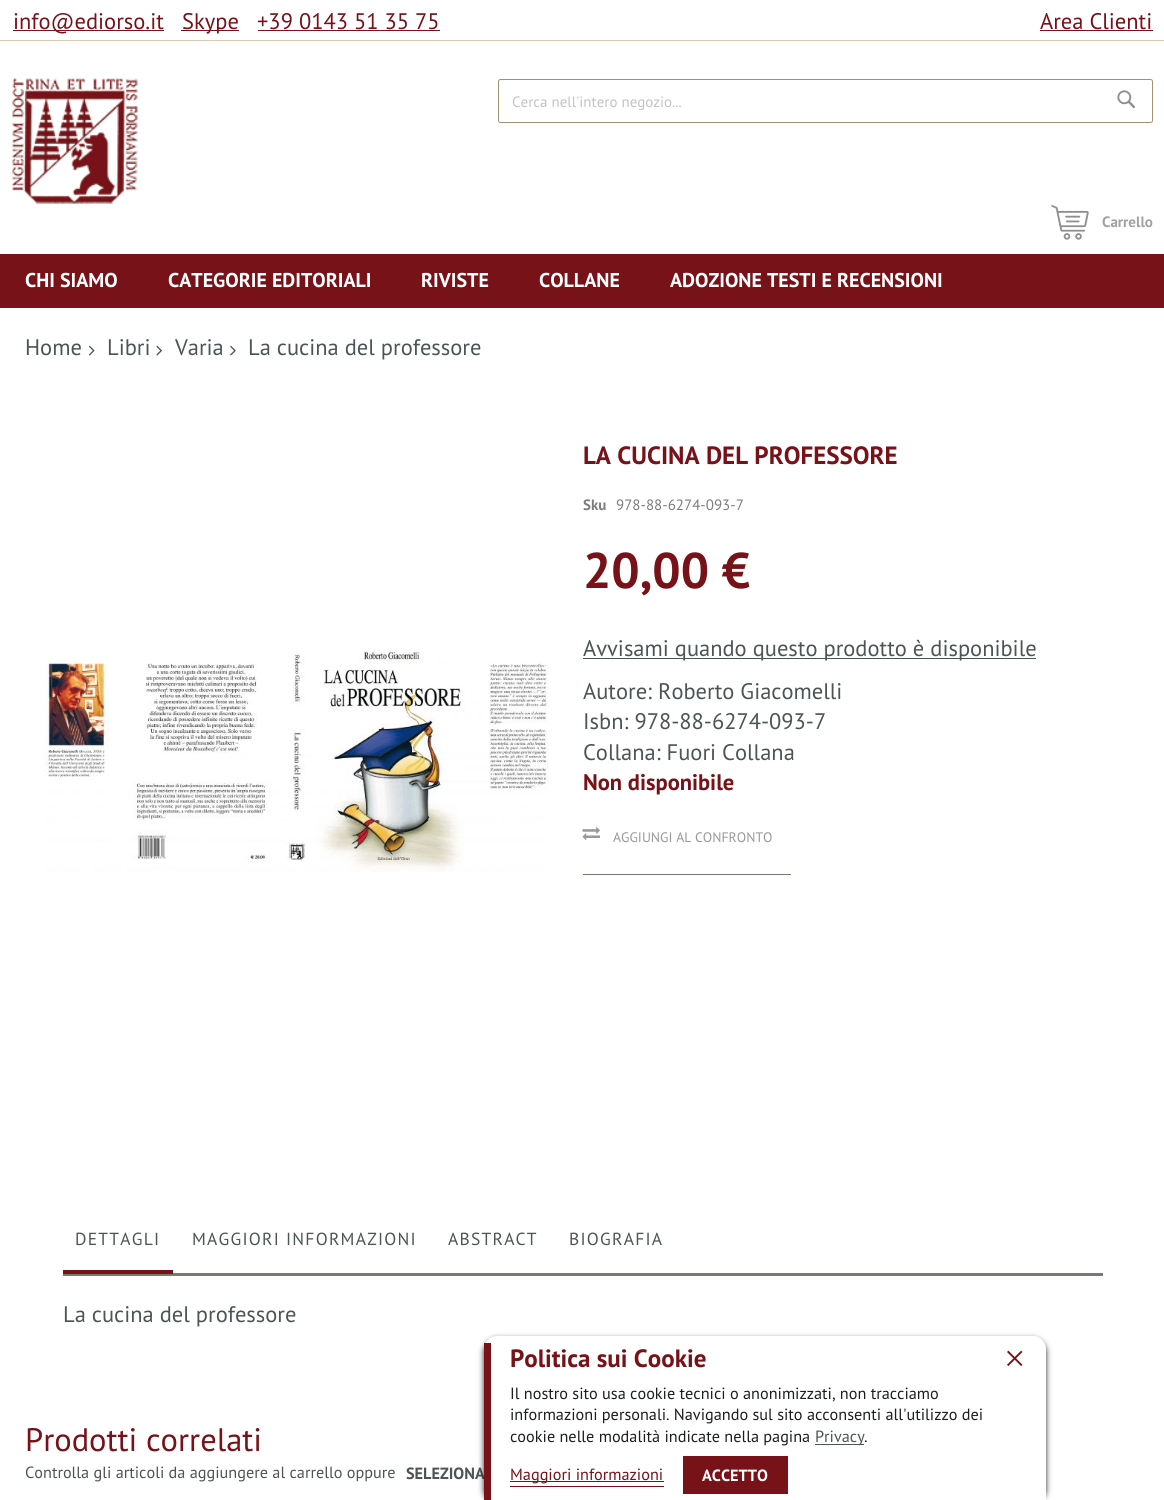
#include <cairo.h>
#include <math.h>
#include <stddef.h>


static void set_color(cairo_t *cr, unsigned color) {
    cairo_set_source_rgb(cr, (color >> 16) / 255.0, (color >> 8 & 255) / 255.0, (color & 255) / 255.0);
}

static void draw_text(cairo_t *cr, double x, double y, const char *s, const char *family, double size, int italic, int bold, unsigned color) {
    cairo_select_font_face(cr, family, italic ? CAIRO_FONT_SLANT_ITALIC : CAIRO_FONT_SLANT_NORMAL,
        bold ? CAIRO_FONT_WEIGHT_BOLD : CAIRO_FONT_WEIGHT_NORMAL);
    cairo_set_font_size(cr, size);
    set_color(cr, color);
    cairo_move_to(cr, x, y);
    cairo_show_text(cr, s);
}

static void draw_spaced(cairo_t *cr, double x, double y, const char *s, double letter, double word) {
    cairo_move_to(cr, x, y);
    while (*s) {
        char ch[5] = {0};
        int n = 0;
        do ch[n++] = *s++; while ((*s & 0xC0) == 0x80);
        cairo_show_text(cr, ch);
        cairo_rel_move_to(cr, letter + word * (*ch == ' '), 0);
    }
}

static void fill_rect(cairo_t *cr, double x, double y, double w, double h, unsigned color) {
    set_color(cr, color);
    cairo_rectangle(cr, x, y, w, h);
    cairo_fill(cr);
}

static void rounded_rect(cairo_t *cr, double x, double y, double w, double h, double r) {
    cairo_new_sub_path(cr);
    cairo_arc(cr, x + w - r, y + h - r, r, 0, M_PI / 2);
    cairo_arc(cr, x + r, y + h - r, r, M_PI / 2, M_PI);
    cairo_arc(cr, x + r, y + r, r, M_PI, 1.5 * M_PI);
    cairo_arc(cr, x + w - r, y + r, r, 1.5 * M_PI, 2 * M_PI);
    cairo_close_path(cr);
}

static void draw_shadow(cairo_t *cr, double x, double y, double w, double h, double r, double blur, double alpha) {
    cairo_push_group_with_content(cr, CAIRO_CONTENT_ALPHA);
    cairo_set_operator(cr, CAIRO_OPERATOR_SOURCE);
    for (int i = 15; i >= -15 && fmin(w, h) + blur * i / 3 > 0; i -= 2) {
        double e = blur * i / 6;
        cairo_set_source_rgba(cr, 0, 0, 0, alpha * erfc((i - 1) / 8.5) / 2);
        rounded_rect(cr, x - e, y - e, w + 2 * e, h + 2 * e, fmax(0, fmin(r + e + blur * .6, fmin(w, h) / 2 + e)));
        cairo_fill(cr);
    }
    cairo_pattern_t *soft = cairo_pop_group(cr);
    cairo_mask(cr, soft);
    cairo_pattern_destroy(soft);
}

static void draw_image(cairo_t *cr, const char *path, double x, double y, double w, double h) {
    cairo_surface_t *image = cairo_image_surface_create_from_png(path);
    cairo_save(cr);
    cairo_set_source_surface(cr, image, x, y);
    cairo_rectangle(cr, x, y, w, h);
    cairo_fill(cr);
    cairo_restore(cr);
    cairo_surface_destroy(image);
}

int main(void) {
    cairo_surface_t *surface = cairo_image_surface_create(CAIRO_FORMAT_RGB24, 1164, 1500);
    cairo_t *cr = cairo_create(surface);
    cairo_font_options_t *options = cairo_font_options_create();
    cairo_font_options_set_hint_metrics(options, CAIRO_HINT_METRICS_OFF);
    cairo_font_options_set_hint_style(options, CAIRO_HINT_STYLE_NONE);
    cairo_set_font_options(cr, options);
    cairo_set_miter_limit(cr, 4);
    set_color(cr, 0xFFFFFF);
    cairo_paint(cr);
    fill_rect(cr, 0, 40, 1164, 1, 0xDCC9B6);
    fill_rect(cr, 13, 30, 151, 1, 0x761218);
    draw_text(cr, 13, 29, "info@ediorso.it", "PT Sans", 22.5, 0, 0, 0x761218);
    fill_rect(cr, 181, 30, 58, 1, 0x761218);
    draw_text(cr, 182, 29, "Skype", "PT Sans", 22.5, 0, 0, 0x761218);
    draw_text(cr, 257, 29, "+39 0143 51 35 75", "PT Sans", 22.5, 0, 0, 0x761218);
    fill_rect(cr, 258, 30, 182, 1, 0x761218);
    draw_text(cr, 1040, 29, "Area Clienti", "PT Sans", 22.5, 0, 0, 0x761218);
    fill_rect(cr, 1040, 30, 113, 1, 0x761218);
    draw_image(cr, "assets/img1.png", 12, 78, 126, 126);
    rounded_rect(cr, 498.5, 79.5, 654, 43, 2);
    set_color(cr, 0xA39171);
    cairo_set_line_width(cr, 1);
    cairo_stroke(cr);
    cairo_save(cr);
    cairo_rectangle(cr, 511, 91, 628, 19);
    cairo_clip(cr);
    draw_text(cr, 512, 107, "Cerca nell'intero negozio...", "PT Sans", 15, 0, 0, 0xC2C2C2);
    cairo_restore(cr);
    draw_image(cr, "assets/img2.png", 1117, 90, 18, 19);
    draw_image(cr, "assets/img3.png", 1051, 205, 38, 35);
    draw_text(cr, 1102, 227, "Carrello", "PT Sans", 15, 0, 1, 0xA1A1A1);
    fill_rect(cr, 0, 254, 1164, 54, 0x761218);
    draw_text(cr, 25, 287, "CHI SIAMO", "PT Sans", 20, 0, 1, 0xFFFFFF);
    draw_text(cr, 168, 287, "CATEGORIE EDITORIALI", "PT Sans", 20, 0, 1, 0xFFFFFF);
    draw_text(cr, 421, 287, "RIVISTE", "PT Sans", 20, 0, 1, 0xFFFFFF);
    draw_text(cr, 539, 287, "COLLANE", "PT Sans", 20, 0, 1, 0xFFFFFF);
    draw_text(cr, 670, 287, "ADOZIONE TESTI E RECENSIONI", "PT Sans", 20, 0, 1, 0xFFFFFF);
    draw_text(cr, 25, 355, "Home", "PT Sans", 22.5, 0, 0, 0x4C5454);
    draw_image(cr, "assets/img4.png", 89, 345, 6, 11);
    draw_text(cr, 107, 355, "Libri", "PT Sans", 22.5, 0, 0, 0x4C5454);
    draw_image(cr, "assets/img5.png", 156, 345, 6, 11);
    draw_text(cr, 175, 355, "Varia", "PT Sans", 22.5, 0, 0, 0x4C5454);
    draw_image(cr, "assets/img6.png", 230, 345, 6, 11);
    draw_text(cr, 248, 355, "La cucina del professore", "PT Sans", 22.5, 0, 0, 0x4C5454);
    draw_image(cr, "assets/img7.png", 44, 651, 505, 221);
    draw_text(cr, 583, 464, "LA CUCINA DEL PROFESSORE", "PT Sans", 25, 0, 1, 0x761218);
    draw_text(cr, 583, 510, "Sku", "PT Sans", 15, 0, 1, 0x7D7D7D);
    draw_text(cr, 616, 510, "978-88-6274-093-7", "PT Sans", 15, 0, 0, 0x7D7D7D);
    draw_text(cr, 583, 588, "20,00 €", "PT Sans", 50, 0, 1, 0x761218);
    fill_rect(cr, 583, 658, 453, 1, 0x4C5454);
    draw_text(cr, 583, 656, "Avvisami quando questo prodotto è disponibile", "PT Sans", 22.5, 0, 0, 0x4C5454);
    draw_text(cr, 583, 699, "Autore: Roberto Giacomelli", "PT Sans", 22.5, 0, 0, 0x4C5454);
    draw_text(cr, 583, 729, "Isbn: 978-88-6274-093-7", "PT Sans", 22.5, 0, 0, 0x4C5454);
    draw_text(cr, 583, 760, "Collana: Fuori Collana", "PT Sans", 22.5, 0, 0, 0x4C5454);
    draw_text(cr, 583, 790, "Non disponibile", "PT Sans", 22.5, 0, 1, 0x761218);
    fill_rect(cr, 583, 874, 208, 1, 0x727D71);
    draw_image(cr, "assets/img8.png", 582, 827, 18, 13);
    draw_text(cr, 613, 842, "AGGIUNGI AL CONFRONTO", "PT Sans", 13.75, 0, 0, 0x999999);
    cairo_set_font_size(cr, 17.5);
    set_color(cr, 0x4C5454);
    draw_spaced(cr, 75, 1245, "DETTAGLI", 1.25, 0);
    fill_rect(cr, 63, 1273, 1040, 3, 0x727D71);
    fill_rect(cr, 63, 1270, 110, 4, 0x761218);
    set_color(cr, 0x4C5454);
    draw_spaced(cr, 192, 1245, "MAGGIORI INFORMAZIONI", 1.25, 0);
    draw_spaced(cr, 448, 1245, "ABSTRACT", 1.25, 0);
    draw_spaced(cr, 569, 1245, "BIOGRAFIA", 1.25, 0);
    draw_text(cr, 63, 1322, "La cucina del professore", "PT Sans", 22.5, 0, 0, 0x4C5454);
    draw_text(cr, 25, 1451, "Prodotti correlati", "PT Sans", 32.5, 0, 0, 0x761218);
    draw_text(cr, 25, 1478, "Controlla gli articoli da aggiungere al carrello oppure", "PT Sans", 16.25, 0, 0, 0x4C5454);
    draw_text(cr, 406, 1479, "SELEZIONA", "PT Sans", 16.25, 0, 1, 0x4C5454);
    set_color(cr, 0x212121);
    draw_shadow(cr, 484, 1339, 562, 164, 13, 3, 1);
    set_color(cr, 0xFFFFFF);
    cairo_new_path(cr);
    cairo_move_to(cr, 497, 1336);
    cairo_line_to(cr, 1033, 1336);
    cairo_curve_to(cr, 1040, 1336, 1046, 1342, 1046, 1349);
    cairo_line_to(cr, 1046, 1500);
    cairo_line_to(cr, 484, 1500);
    cairo_line_to(cr, 484, 1349);
    cairo_curve_to(cr, 484, 1342, 490, 1336, 497, 1336);
    cairo_close_path(cr);
    cairo_fill(cr);
    fill_rect(cr, 484, 1343, 7, 157, 0x761218);
    draw_text(cr, 510, 1367, "Politica sui Cookie", "PT Sans", 25, 0, 1, 0x761218);
    draw_text(cr, 510, 1399, "Il nostro sito usa cookie tecnici o anonimizzati, non tracciamo", "PT Sans", 16.25, 0, 0, 0x1C1E1E);
    draw_text(cr, 510, 1420, "informazioni personali. Navigando sul sito acconsenti all'utilizzo dei", "PT Sans", 16.25, 0, 0, 0x1C1E1E);
    draw_text(cr, 510, 1442, "cookie nelle modalità indicate nella pagina", "PT Sans", 16.25, 0, 0, 0x1C1E1E);
    fill_rect(cr, 815, 1444, 49, 1, 0x4C5454);
    draw_text(cr, 815, 1442, "Privacy", "PT Sans", 16.25, 0, 0, 0x4C5454);
    draw_text(cr, 864, 1442, ".", "PT Sans", 16.25, 0, 0, 0x1C1E1E);
    fill_rect(cr, 510, 1486, 154, 1, 0x761218);
    fill_rect(cr, 510, 1481, 154, 1, 0x761218);
    draw_text(cr, 510, 1480, "Maggiori informazioni", "PT Sans", 16.25, 0, 0, 0x761218);
    fill_rect(cr, 683, 1456, 105, 38, 0x761218);
    draw_text(cr, 702, 1481, "ACCETTO", "PT Sans", 16.25, 0, 1, 0xFFFFFF);
    draw_text(cr, 1004, 1371, "×", "Liberation Serif", 38, 0, 0, 0x761218);
    cairo_surface_write_to_png(surface, "output.png");
    cairo_font_options_destroy(options);
    cairo_destroy(cr);
    cairo_surface_destroy(surface);
    return 0;
}
